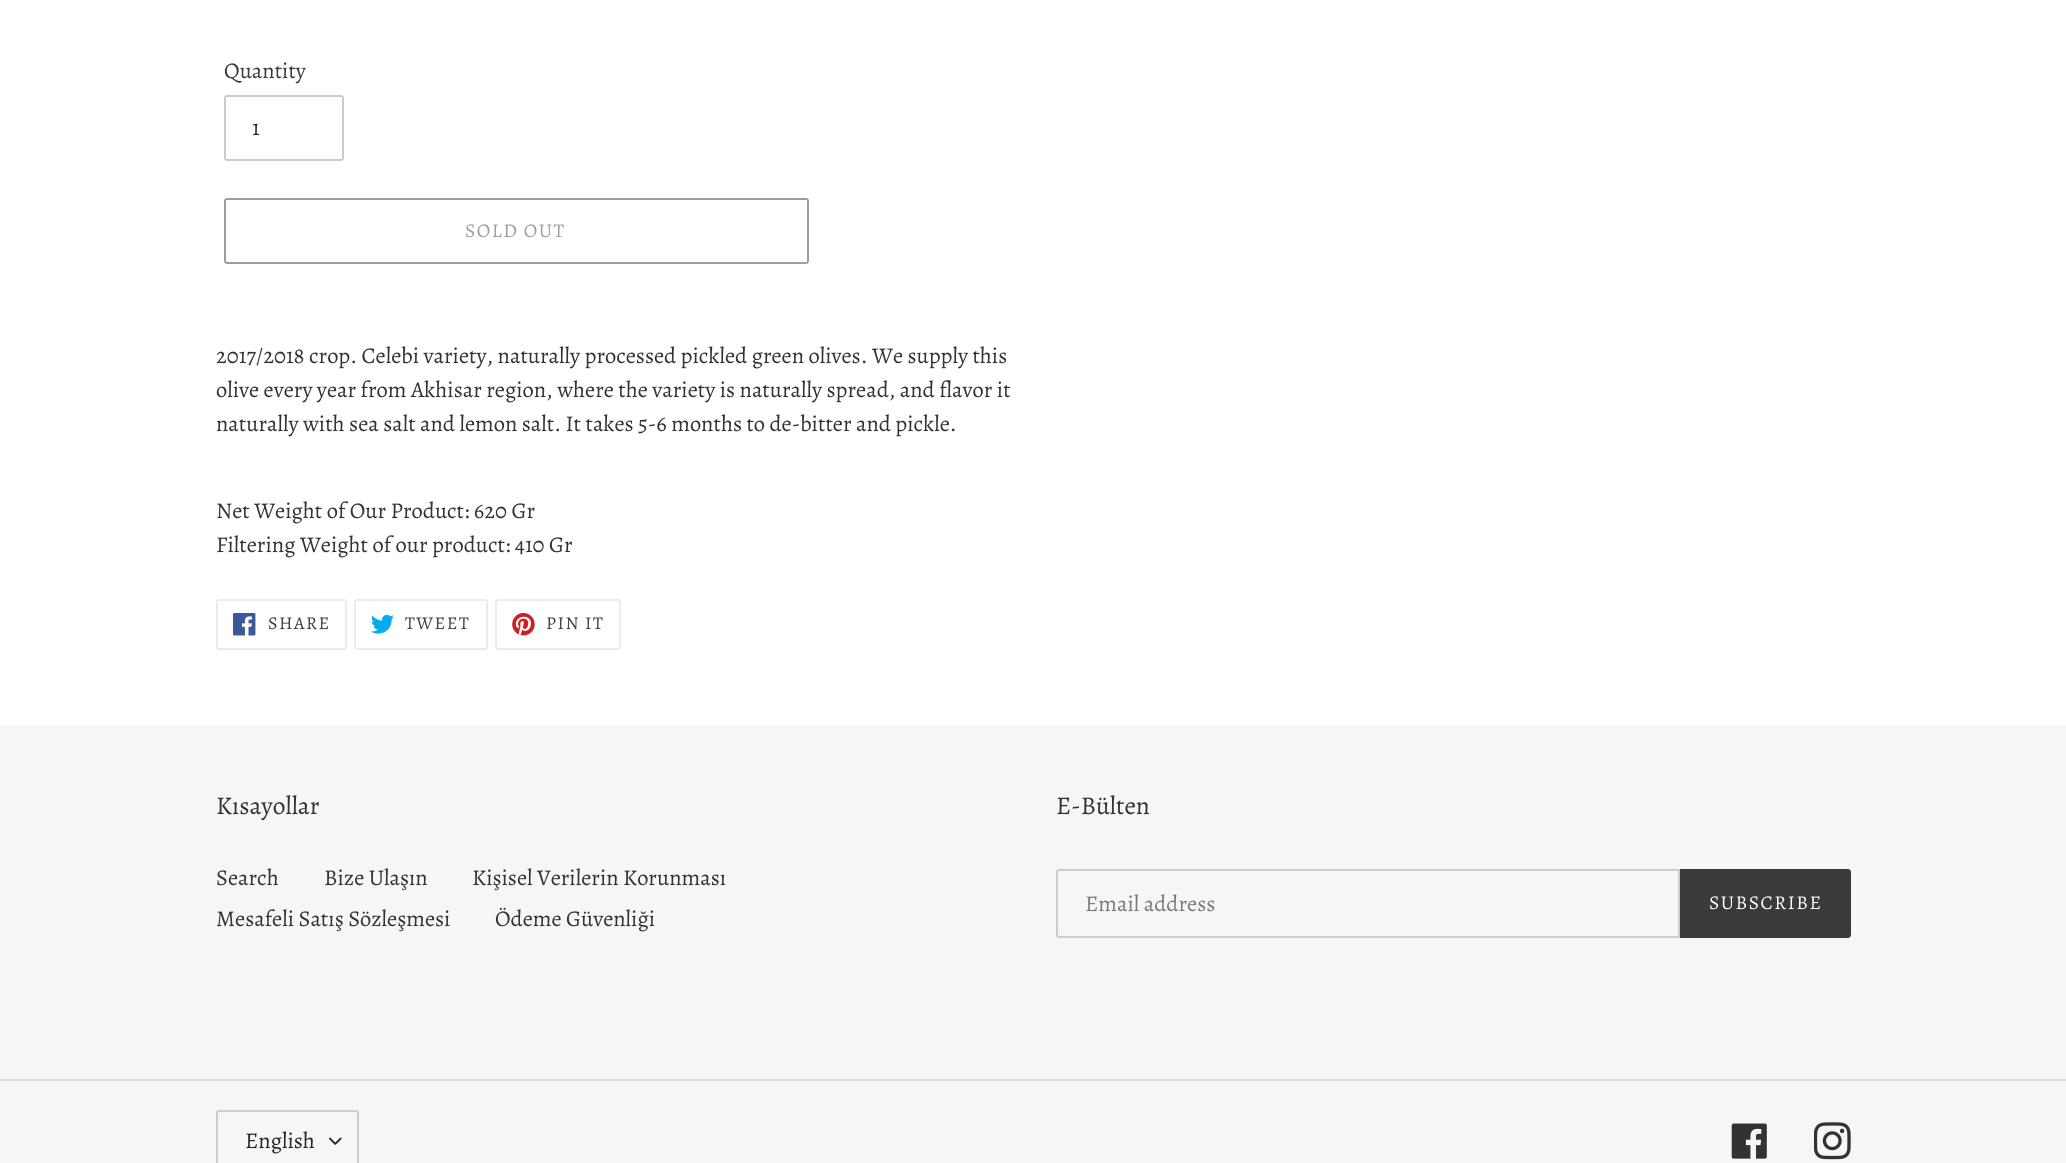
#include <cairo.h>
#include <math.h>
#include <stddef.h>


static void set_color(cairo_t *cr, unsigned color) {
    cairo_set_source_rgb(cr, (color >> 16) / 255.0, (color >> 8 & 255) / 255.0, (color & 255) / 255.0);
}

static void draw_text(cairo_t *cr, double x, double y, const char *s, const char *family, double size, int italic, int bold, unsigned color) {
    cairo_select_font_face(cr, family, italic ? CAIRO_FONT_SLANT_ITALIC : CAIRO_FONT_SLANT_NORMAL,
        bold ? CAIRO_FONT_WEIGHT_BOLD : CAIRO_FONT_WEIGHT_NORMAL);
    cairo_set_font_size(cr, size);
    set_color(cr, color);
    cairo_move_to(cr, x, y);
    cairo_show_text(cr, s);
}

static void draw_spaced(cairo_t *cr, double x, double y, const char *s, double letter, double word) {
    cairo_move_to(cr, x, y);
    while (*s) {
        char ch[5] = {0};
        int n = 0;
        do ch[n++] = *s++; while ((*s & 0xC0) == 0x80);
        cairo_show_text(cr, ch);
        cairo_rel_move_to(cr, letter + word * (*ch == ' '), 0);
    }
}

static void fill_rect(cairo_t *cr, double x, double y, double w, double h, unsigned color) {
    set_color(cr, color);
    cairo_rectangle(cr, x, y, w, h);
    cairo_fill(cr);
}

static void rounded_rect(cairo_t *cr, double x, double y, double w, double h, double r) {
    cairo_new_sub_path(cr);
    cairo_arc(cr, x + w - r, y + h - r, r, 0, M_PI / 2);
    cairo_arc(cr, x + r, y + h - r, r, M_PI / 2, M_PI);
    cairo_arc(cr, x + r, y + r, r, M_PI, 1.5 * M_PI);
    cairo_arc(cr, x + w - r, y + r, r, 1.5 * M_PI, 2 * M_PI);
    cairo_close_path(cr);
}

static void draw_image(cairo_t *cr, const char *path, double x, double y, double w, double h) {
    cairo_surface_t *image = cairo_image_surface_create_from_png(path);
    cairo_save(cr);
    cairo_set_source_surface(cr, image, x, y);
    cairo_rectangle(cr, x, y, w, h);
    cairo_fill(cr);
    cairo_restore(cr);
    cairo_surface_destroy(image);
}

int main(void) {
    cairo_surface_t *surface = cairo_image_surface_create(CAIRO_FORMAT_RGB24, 2066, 1163);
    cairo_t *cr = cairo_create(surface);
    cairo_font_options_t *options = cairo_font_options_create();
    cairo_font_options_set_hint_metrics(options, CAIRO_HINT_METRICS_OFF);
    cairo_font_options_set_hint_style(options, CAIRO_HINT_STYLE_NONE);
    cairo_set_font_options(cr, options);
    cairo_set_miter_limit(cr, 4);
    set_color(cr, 0xFFFFFF);
    cairo_paint(cr);
    draw_text(cr, 224, 78, "Quantity", "Alegreya", 22.5, 0, 0, 0x3A3A3A);
    rounded_rect(cr, 225, 96, 118, 64, 2);
    set_color(cr, 0xCCCCCC);
    cairo_stroke(cr);
    draw_text(cr, 252, 135, "1", "Alegreya", 22.5, 0, 0, 0x292424);
    rounded_rect(cr, 225, 199, 583, 64, 2);
    set_color(cr, 0x9D9D9D);
    cairo_stroke(cr);
    cairo_set_font_size(cr, 19.5);
    draw_spaced(cr, 465, 237, "SOLD OUT", 1.5, 0);
    draw_text(cr, 216, 363, "2017/2018 crop. Celebi variety, naturally processed pickled green olives. We supply this", "Alegreya", 22.5, 0, 0, 0x333232);
    draw_text(cr, 216, 397, "olive every year from Akhisar region, where the variety is naturally spread, and flavor it", "Alegreya", 22.5, 0, 0, 0x333232);
    draw_text(cr, 216, 431, "naturally with sea salt and lemon salt. It takes 5-6 months to de-bitter and pickle.", "Alegreya", 22.5, 0, 0, 0x333232);
    draw_text(cr, 216, 518, "Net Weight of Our Product: 620 Gr", "Alegreya", 22.5, 0, 0, 0x333232);
    draw_text(cr, 216, 552, "Filtering Weight of our product: 410 Gr", "Alegreya", 22.5, 0, 0, 0x333232);
    rounded_rect(cr, 217, 600, 129, 49, 2);
    set_color(cr, 0xEBEBEB);
    cairo_stroke(cr);
    draw_image(cr, "assets/img1.png", 233, 613, 23, 23);
    cairo_set_font_size(cr, 18);
    set_color(cr, 0x3A3A3A);
    draw_spaced(cr, 268, 629, "SHARE", 1.5, 0);
    rounded_rect(cr, 355, 600, 132, 49, 2);
    set_color(cr, 0xEBEBEB);
    cairo_stroke(cr);
    draw_image(cr, "assets/img2.png", 371, 614, 23, 20);
    set_color(cr, 0x3A3A3A);
    draw_spaced(cr, 405, 629, "TWEET", 1.5, 0);
    rounded_rect(cr, 496, 600, 124, 49, 2);
    set_color(cr, 0xEBEBEB);
    cairo_stroke(cr);
    draw_image(cr, "assets/img3.png", 512, 613, 23, 23);
    set_color(cr, 0x3A3A3A);
    draw_spaced(cr, 546, 629, "PIN IT", 1.5, 0);
    fill_rect(cr, 0, 725, 2066, 438, 0xF6F6F6);
    draw_text(cr, 216, 814, "Kısayollar", "Alegreya", 25.5, 0, 0, 0x333232);
    draw_text(cr, 216, 885, "Search", "Alegreya", 22.5, 0, 0, 0x333232);
    draw_text(cr, 324, 885, "Bize Ulaşın", "Alegreya", 22.5, 0, 0, 0x333232);
    draw_text(cr, 472, 885, "Kişisel Verilerin Korunması", "Alegreya", 22.5, 0, 0, 0x333232);
    draw_text(cr, 216, 926, "Mesafeli Satış Sözleşmesi", "Alegreya", 22.5, 0, 0, 0x333232);
    draw_text(cr, 495, 926, "Ödeme Güvenliği", "Alegreya", 22.5, 0, 0, 0x333232);
    draw_text(cr, 1056, 814, "E-Bülten", "Alegreya", 25.5, 0, 0, 0x333232);
    cairo_new_path(cr);
    cairo_move_to(cr, 1059, 870);
    cairo_line_to(cr, 1679, 870);
    cairo_line_to(cr, 1679, 937);
    cairo_line_to(cr, 1059, 937);
    cairo_curve_to(cr, 1058, 937, 1057, 936, 1057, 935);
    cairo_line_to(cr, 1057, 872);
    cairo_curve_to(cr, 1057, 871, 1058, 870, 1059, 870);
    cairo_close_path(cr);
    set_color(cr, 0xCCCCCC);
    cairo_stroke(cr);
    draw_text(cr, 1085, 911, "Email address", "Alegreya", 22.5, 0, 0, 0x7B7878);
    set_color(cr, 0x3A3A3A);
    cairo_new_path(cr);
    cairo_move_to(cr, 1680, 869);
    cairo_line_to(cr, 1848, 869);
    cairo_curve_to(cr, 1849.5, 869, 1851, 870.5, 1851, 872);
    cairo_line_to(cr, 1851, 935);
    cairo_curve_to(cr, 1851, 936.5, 1849.5, 938, 1848, 938);
    cairo_line_to(cr, 1680, 938);
    cairo_close_path(cr);
    cairo_fill(cr);
    cairo_set_font_size(cr, 19.5);
    set_color(cr, 0xFFFFFF);
    draw_spaced(cr, 1709, 909, "SUBSCRIBE", 1.5, 0);
    fill_rect(cr, 0, 1079, 2066, 2, 0xDDDDDD);
    draw_image(cr, "assets/img4.png", 329, 1137, 13, 8);
    rounded_rect(cr, 217, 1111, 141, 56, 2);
    set_color(cr, 0xCCCCCC);
    cairo_stroke(cr);
    draw_text(cr, 245, 1148, "English", "Alegreya", 22.5, 0, 0, 0x292424);
    draw_image(cr, "assets/img5.png", 1731, 1123, 36, 36);
    draw_image(cr, "assets/img6.png", 1814, 1122, 37, 38);
    cairo_surface_write_to_png(surface, "output.png");
    cairo_font_options_destroy(options);
    cairo_destroy(cr);
    cairo_surface_destroy(surface);
    return 0;
}
